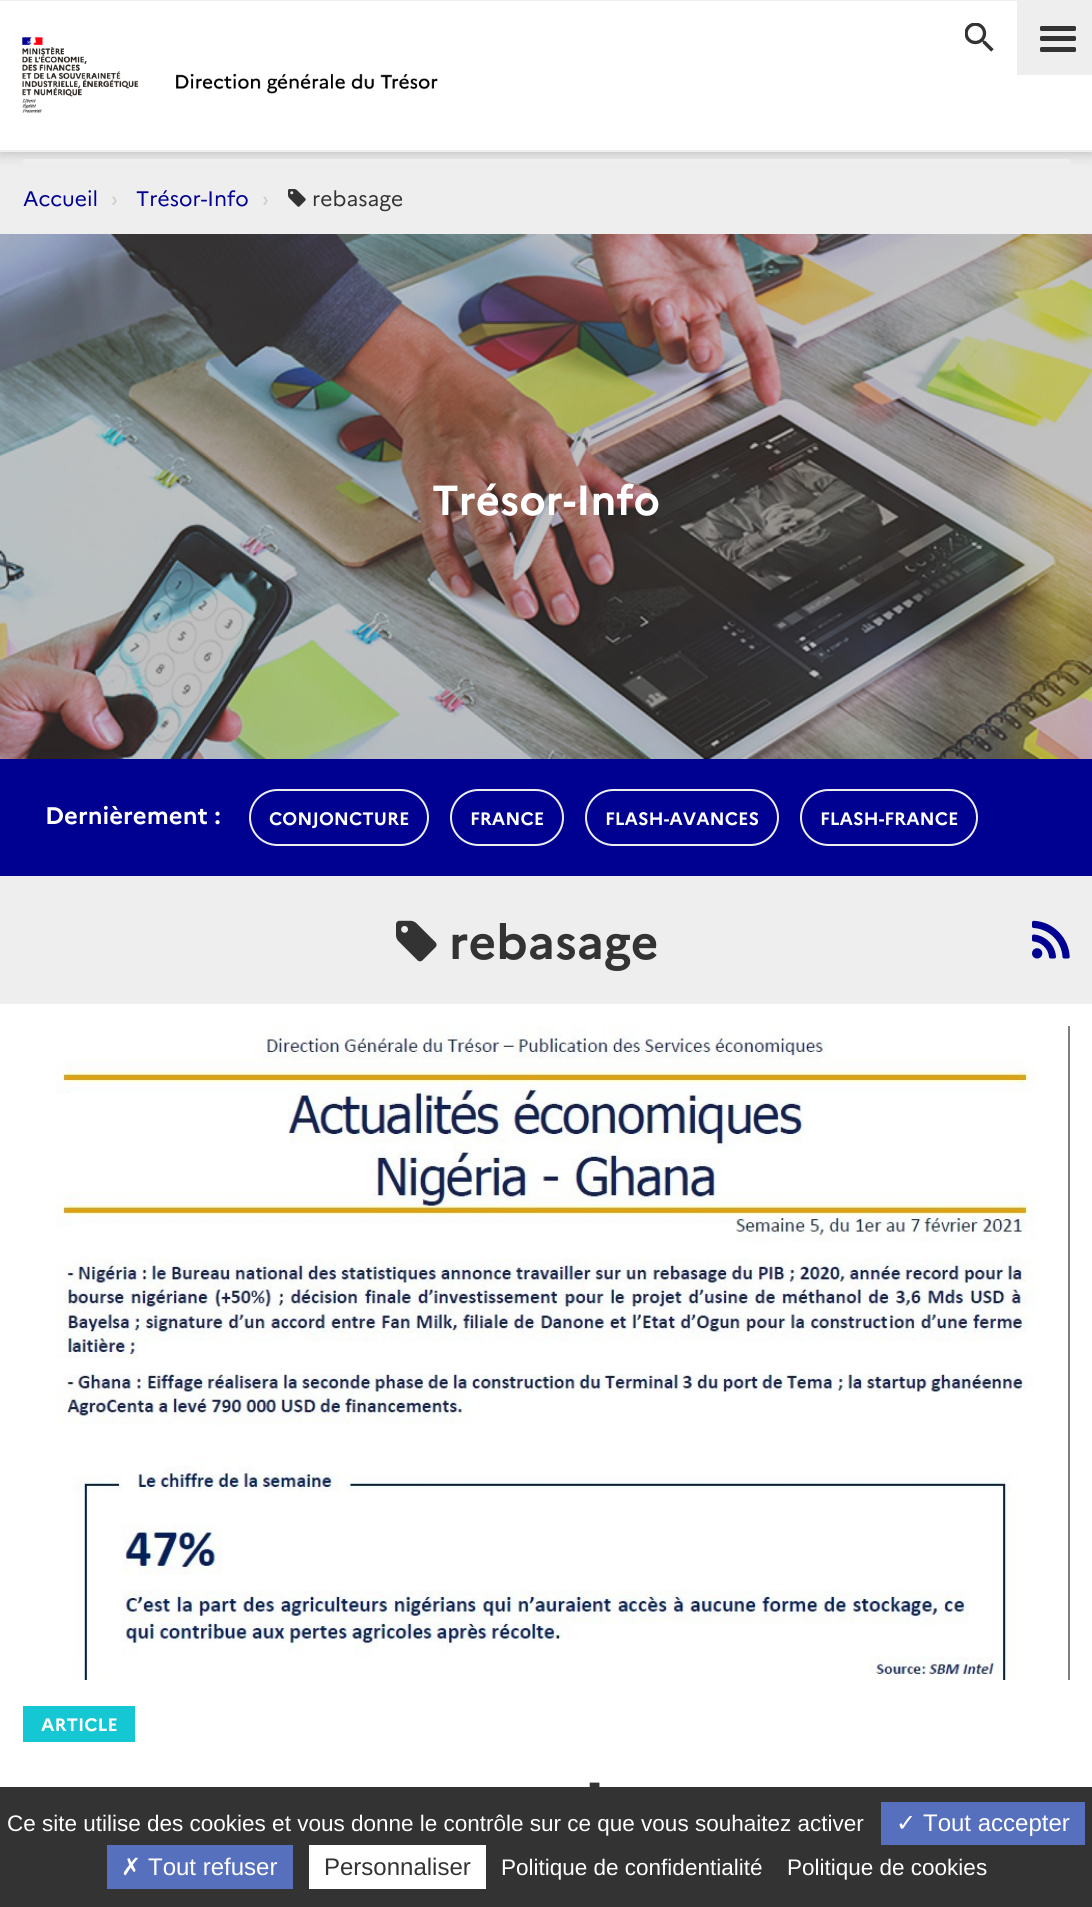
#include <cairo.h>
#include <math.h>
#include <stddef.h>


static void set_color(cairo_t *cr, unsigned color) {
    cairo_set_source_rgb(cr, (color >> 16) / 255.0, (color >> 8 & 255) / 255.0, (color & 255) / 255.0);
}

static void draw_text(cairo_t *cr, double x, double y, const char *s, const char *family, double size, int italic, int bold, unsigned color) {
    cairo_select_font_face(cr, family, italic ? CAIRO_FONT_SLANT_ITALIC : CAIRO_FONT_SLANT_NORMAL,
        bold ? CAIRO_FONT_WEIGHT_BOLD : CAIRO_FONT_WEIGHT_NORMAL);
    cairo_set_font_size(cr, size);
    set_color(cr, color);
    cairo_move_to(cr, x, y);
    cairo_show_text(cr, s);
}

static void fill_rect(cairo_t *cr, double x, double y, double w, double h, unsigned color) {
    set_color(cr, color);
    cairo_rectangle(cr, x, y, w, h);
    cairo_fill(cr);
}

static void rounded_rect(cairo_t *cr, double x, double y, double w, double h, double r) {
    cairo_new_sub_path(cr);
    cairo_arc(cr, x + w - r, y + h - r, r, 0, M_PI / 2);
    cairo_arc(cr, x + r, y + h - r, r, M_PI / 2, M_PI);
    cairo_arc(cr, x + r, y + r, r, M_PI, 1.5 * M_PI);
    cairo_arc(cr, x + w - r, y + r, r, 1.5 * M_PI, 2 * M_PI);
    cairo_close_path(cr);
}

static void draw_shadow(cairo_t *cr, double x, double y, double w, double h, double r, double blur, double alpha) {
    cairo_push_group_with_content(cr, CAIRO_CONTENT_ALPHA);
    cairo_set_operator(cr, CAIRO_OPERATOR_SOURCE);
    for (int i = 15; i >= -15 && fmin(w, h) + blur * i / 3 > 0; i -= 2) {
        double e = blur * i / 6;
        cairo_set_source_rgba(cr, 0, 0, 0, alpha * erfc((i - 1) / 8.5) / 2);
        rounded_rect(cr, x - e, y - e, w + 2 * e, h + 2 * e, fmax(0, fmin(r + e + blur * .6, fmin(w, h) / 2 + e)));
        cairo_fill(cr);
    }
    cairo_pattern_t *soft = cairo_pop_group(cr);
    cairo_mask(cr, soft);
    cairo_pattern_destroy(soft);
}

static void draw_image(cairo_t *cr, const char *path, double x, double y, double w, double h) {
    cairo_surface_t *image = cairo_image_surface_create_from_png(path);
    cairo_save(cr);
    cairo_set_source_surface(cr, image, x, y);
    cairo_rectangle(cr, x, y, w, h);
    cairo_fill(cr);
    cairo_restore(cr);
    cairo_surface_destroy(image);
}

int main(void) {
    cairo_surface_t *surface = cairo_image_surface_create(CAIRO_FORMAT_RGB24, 1092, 1907);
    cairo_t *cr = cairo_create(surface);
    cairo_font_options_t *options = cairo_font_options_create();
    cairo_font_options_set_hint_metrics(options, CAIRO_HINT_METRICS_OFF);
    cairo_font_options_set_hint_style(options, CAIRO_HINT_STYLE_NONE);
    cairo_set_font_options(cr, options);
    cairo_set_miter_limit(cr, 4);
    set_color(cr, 0xEEEEEE);
    cairo_paint(cr);
    set_color(cr, 0x000000);
    draw_shadow(cr, 0, 0, 1092, 152, 0, 7.5, 0.25);
    fill_rect(cr, 0, 2, 1092, 148, 0xFFFFFF);
    fill_rect(cr, 0, 1, 1017, 1, 0xFFFFFF);
    fill_rect(cr, 0, 150, 1092, 2, 0xEEEEEE);
    fill_rect(cr, 0, 0, 1092, 1, 0xEEEEEE);
    draw_image(cr, "assets/img1.png", 22, 37, 117, 76);
    draw_image(cr, "assets/img2.png", 176, 73, 262, 21);
    draw_image(cr, "assets/img3.png", 965, 23, 29, 29);
    fill_rect(cr, 1017, 2, 75, 73, 0xEEEEEE);
    fill_rect(cr, 1017, 1, 75, 1, 0xF0F0F0);
    set_color(cr, 0x333333);
    rounded_rect(cr, 1040, 26, 36, 5, 1.5);
    cairo_fill(cr);
    rounded_rect(cr, 1040, 36, 36, 5, 1.5);
    cairo_fill(cr);
    rounded_rect(cr, 1040, 47, 36, 5, 1.5);
    cairo_fill(cr);
    fill_rect(cr, 23, 159, 1047, 6, 0xEEEEEE);
    draw_text(cr, 23, 206, "Accueil", "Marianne", 21, 0, 0, 0x000091);
    draw_text(cr, 111, 206, "›", "Marianne", 21, 0, 0, 0xCCCCCC);
    draw_text(cr, 136, 206, "Trésor-Info", "Marianne", 21, 0, 0, 0x000091);
    draw_text(cr, 262, 206, "›", "Marianne", 21, 0, 0, 0xCCCCCC);
    draw_image(cr, "assets/img4.png", 288, 189, 18, 18);
    draw_text(cr, 312, 206, "rebasage", "Marianne", 21, 0, 0, 0x333333);
    fill_rect(cr, 0, 1004, 1092, 783, 0xFFFFFF);
    draw_image(cr, "assets/img5.png", 0, 234, 1092, 525);
    draw_text(cr, 432, 515, "Trésor-Info", "Marianne", 42, 0, 1, 0xFFFFFF);
    fill_rect(cr, 0, 759, 1092, 117, 0x000091);
    draw_text(cr, 45, 824, "Dernièrement :", "Marianne", 24, 0, 1, 0xFFFFFF);
    rounded_rect(cr, 250, 790, 178, 55, 27.5);
    set_color(cr, 0xEEEEEE);
    cairo_stroke(cr);
    draw_text(cr, 269, 825, "CONJONCTURE", "Marianne", 18, 0, 1, 0xFFFFFF);
    rounded_rect(cr, 451, 790, 112, 55, 27.5);
    set_color(cr, 0xEEEEEE);
    cairo_stroke(cr);
    draw_text(cr, 470, 825, "FRANCE", "Marianne", 18, 0, 1, 0xFFFFFF);
    rounded_rect(cr, 586, 790, 192, 55, 27.5);
    set_color(cr, 0xEEEEEE);
    cairo_stroke(cr);
    draw_text(cr, 605, 825, "FLASH-AVANCES", "Marianne", 18, 0, 1, 0xFFFFFF);
    rounded_rect(cr, 801, 790, 176, 55, 27.5);
    set_color(cr, 0xEEEEEE);
    cairo_stroke(cr);
    draw_text(cr, 820, 825, "FLASH-FRANCE", "Marianne", 18, 0, 1, 0xFFFFFF);
    draw_image(cr, "assets/img6.png", 396, 920, 41, 42);
    draw_text(cr, 449, 959, "rebasage", "Marianne", 48, 0, 1, 0x333333);
    draw_image(cr, "assets/img7.png", 1032, 920, 38, 39);
    draw_image(cr, "assets/img8.png", 55, 1026, 1015, 654);
    fill_rect(cr, 23, 1706, 112, 36, 0x15C7D2);
    draw_text(cr, 41, 1731, "ARTICLE", "Marianne", 18, 0, 1, 0xFFFFFF);
    draw_text(cr, 589, 1794, "-", "Marianne", 36, 0, 1, 0x333333);
    fill_rect(cr, 0, 1787, 1092, 120, 0x333333);
    draw_text(cr, 7, 1831, "Ce site utilise des cookies et vous donne le contrôle sur ce que vous souhaitez activer", "Liberation Sans", 22.5, 0, 0, 0xFFFFFF);
    fill_rect(cr, 881, 1802, 204, 43, 0x5770BE);
    draw_text(cr, 896, 1831, "✓", "DejaVu Sans", 24, 0, 0, 0xFFFFFF);
    draw_text(cr, 923, 1831, "Tout accepter", "Liberation Sans", 24, 0, 0, 0xFFFFFF);
    fill_rect(cr, 107, 1845, 186, 44, 0x5770BE);
    draw_text(cr, 121, 1875, "✗", "DejaVu Sans", 24, 0, 0, 0xFFFFFF);
    draw_text(cr, 148, 1875, "Tout refuser", "Liberation Sans", 24, 0, 0, 0xFFFFFF);
    fill_rect(cr, 309, 1845, 177, 44, 0xFFFFFF);
    draw_text(cr, 324, 1875, "Personnaliser", "Liberation Sans", 24, 0, 0, 0x333333);
    draw_text(cr, 501, 1875, "Politique de confidentialité", "Liberation Sans", 22.5, 0, 0, 0xFFFFFF);
    draw_text(cr, 787, 1875, "Politique de cookies", "Liberation Sans", 22.5, 0, 0, 0xFFFFFF);
    cairo_surface_write_to_png(surface, "output.png");
    cairo_font_options_destroy(options);
    cairo_destroy(cr);
    cairo_surface_destroy(surface);
    return 0;
}
